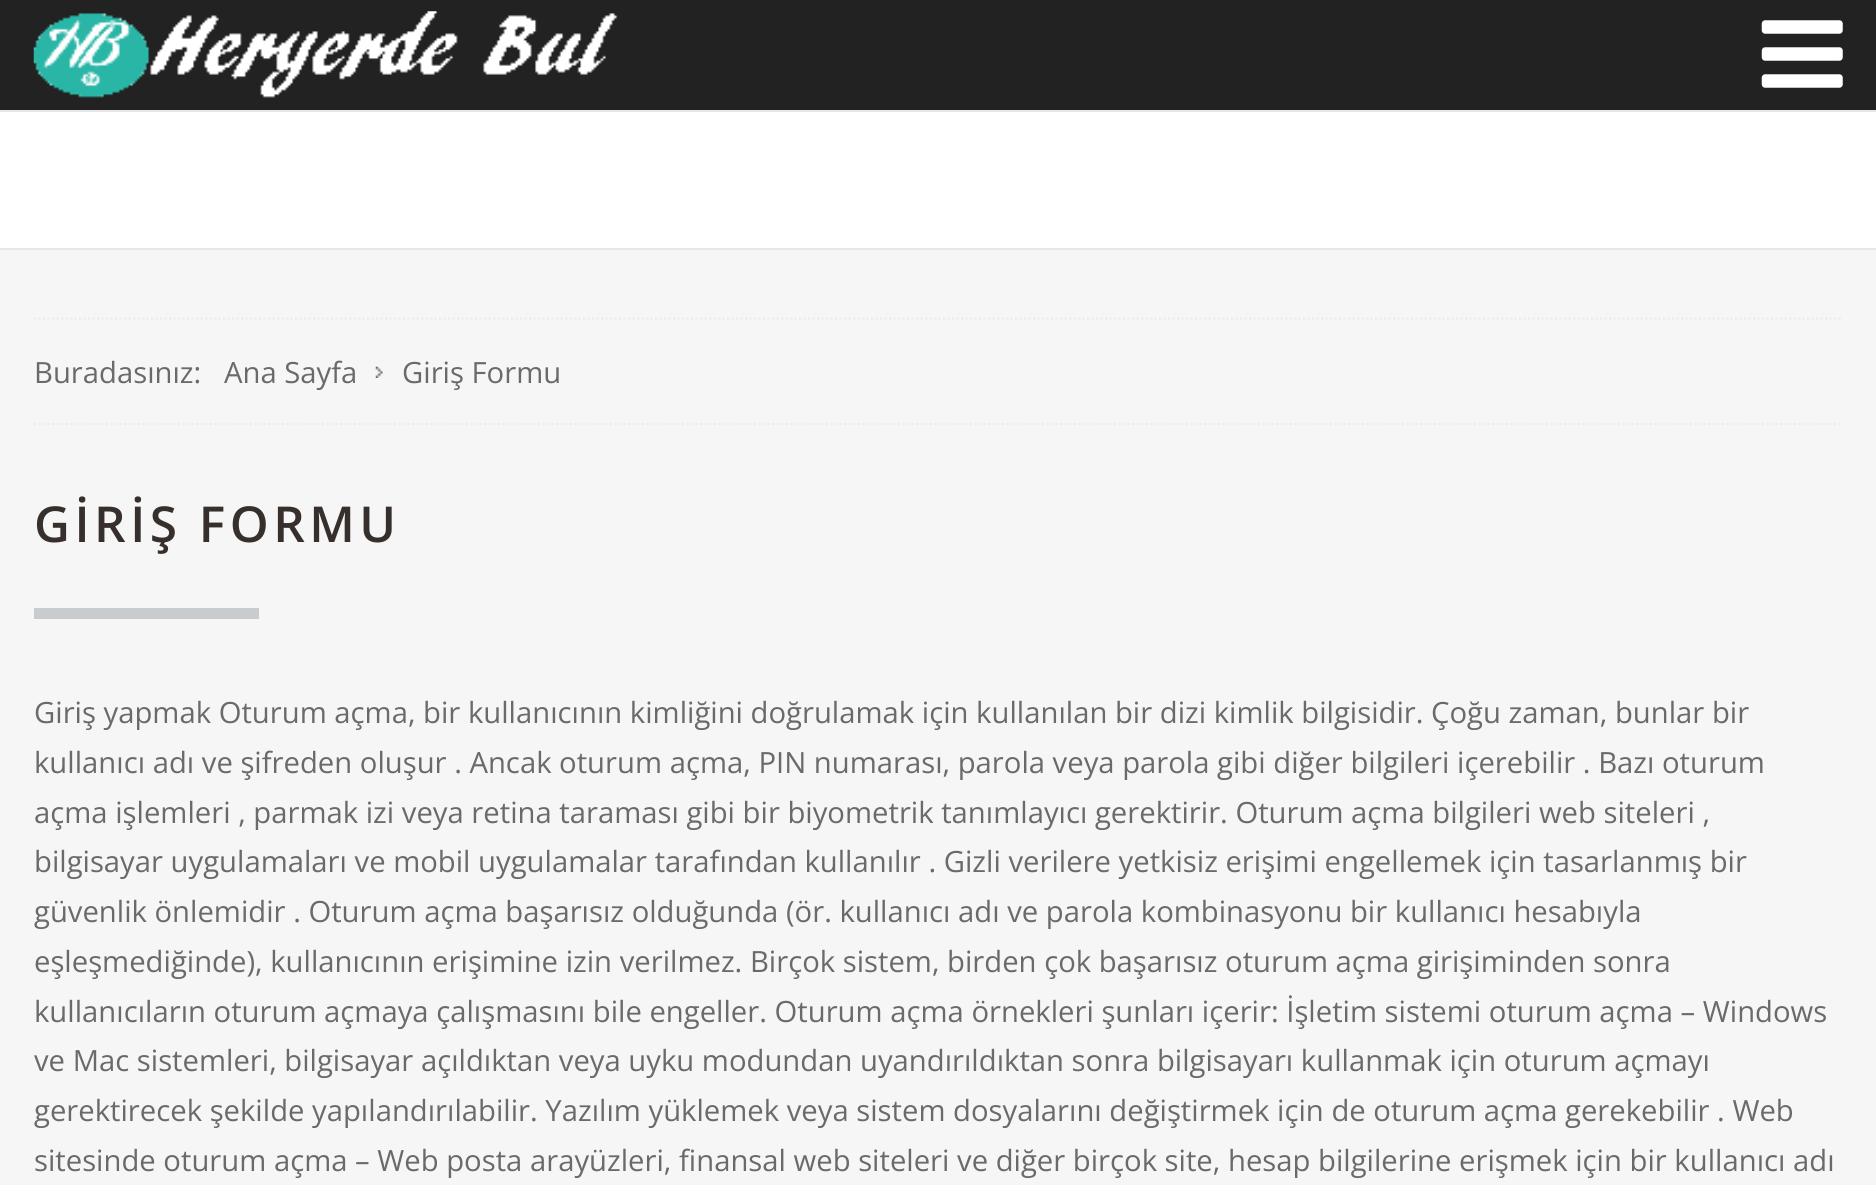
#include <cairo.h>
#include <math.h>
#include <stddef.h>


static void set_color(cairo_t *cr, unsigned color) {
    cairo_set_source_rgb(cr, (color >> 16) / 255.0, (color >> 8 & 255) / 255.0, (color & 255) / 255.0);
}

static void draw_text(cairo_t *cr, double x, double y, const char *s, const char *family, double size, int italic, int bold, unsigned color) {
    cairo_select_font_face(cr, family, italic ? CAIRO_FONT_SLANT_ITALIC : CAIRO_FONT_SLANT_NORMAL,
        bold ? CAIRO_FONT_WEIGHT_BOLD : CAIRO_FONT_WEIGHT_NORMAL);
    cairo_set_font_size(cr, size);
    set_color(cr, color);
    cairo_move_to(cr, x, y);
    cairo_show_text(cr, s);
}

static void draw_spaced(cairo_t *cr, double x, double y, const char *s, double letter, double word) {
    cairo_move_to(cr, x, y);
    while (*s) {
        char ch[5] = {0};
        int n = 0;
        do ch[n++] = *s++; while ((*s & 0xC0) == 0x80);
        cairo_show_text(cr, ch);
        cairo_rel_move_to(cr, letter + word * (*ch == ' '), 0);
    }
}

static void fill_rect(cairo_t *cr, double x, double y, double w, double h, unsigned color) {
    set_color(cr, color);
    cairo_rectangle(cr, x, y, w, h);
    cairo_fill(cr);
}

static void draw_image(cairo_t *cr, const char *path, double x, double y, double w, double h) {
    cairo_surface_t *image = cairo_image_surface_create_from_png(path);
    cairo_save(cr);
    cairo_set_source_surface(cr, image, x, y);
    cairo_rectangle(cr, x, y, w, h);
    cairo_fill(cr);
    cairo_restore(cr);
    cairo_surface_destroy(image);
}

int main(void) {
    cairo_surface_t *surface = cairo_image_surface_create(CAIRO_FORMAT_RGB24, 1876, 1185);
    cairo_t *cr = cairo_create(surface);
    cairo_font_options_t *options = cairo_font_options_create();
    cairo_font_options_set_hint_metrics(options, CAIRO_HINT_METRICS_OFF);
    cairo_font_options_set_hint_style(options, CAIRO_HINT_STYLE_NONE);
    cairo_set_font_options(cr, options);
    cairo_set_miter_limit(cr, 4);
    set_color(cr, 0xF6F6F6);
    cairo_paint(cr);
    fill_rect(cr, 0, 0, 1876, 110, 0x222222);
    draw_image(cr, "assets/img1.png", 33, 11, 585, 87);
    draw_image(cr, "assets/img2.png", 1761, 20, 82, 68);
    fill_rect(cr, 0, 112, 1876, 136, 0xFFFFFF);
    fill_rect(cr, 0, 110, 1876, 2, 0xE7E7E7);
    fill_rect(cr, 0, 248, 1876, 2, 0xE7E7E7);
    cairo_new_path(cr);
    cairo_move_to(cr, 34, 318.5);
    cairo_line_to(cr, 1843, 318.5);
    set_color(cr, 0xECECEC);
    cairo_set_line_width(cr, 2.2);
    cairo_set_dash(cr, (double[]){2.25, 2.25}, 2, 0);
    cairo_stroke(cr);
    cairo_new_path(cr);
    cairo_move_to(cr, 34, 424);
    cairo_line_to(cr, 1843, 424);
    cairo_stroke(cr);
    draw_text(cr, 34, 383, "Buradasınız:", "Open Sans", 29.25, 0, 0, 0x6A6A6A);
    draw_text(cr, 224, 383, "Ana Sayfa", "Open Sans", 29.25, 0, 0, 0x6A6A6A);
    draw_image(cr, "assets/img3.png", 375, 366, 8, 12);
    draw_text(cr, 402, 383, "Giriş Formu", "Open Sans", 29.25, 0, 0, 0x6A6A6A);
    cairo_select_font_face(cr, "Open Sans SemiBold", CAIRO_FONT_SLANT_NORMAL, CAIRO_FONT_WEIGHT_NORMAL);
    cairo_set_font_size(cr, 49.5);
    set_color(cr, 0x372F2B);
    draw_spaced(cr, 34, 542, "GİRİŞ FORMU", 4.5, 0);
    fill_rect(cr, 34, 608, 225, 11, 0xC8CCCE);
    draw_text(cr, 34, 723, "Giriş yapmak Oturum açma, bir kullanıcının kimliğini doğrulamak için kullanılan bir dizi kimlik bilgisidir. Çoğu zaman, bunlar bir", "Open Sans", 29.25, 0, 0, 0x6A6A6A);
    draw_text(cr, 34, 773, "kullanıcı adı ve şifreden oluşur . Ancak oturum açma, PIN numarası, parola veya parola gibi diğer bilgileri içerebilir . Bazı oturum", "Open Sans", 29.25, 0, 0, 0x6A6A6A);
    draw_text(cr, 34, 823, "açma işlemleri , parmak izi veya retina taraması gibi bir biyometrik tanımlayıcı gerektirir. Oturum açma bilgileri web siteleri ,", "Open Sans", 29.25, 0, 0, 0x6A6A6A);
    draw_text(cr, 34, 872, "bilgisayar uygulamaları ve mobil uygulamalar tarafından kullanılır . Gizli verilere yetkisiz erişimi engellemek için tasarlanmış bir", "Open Sans", 29.25, 0, 0, 0x6A6A6A);
    draw_text(cr, 34, 922, "güvenlik önlemidir . Oturum açma başarısız olduğunda (ör. kullanıcı adı ve parola kombinasyonu bir kullanıcı hesabıyla", "Open Sans", 29.25, 0, 0, 0x6A6A6A);
    draw_text(cr, 34, 972, "eşleşmediğinde), kullanıcının erişimine izin verilmez. Birçok sistem, birden çok başarısız oturum açma girişiminden sonra", "Open Sans", 29.25, 0, 0, 0x6A6A6A);
    draw_text(cr, 34, 1022, "kullanıcıların oturum açmaya çalışmasını bile engeller. Oturum açma örnekleri şunları içerir: İşletim sistemi oturum açma – Windows", "Open Sans", 29.25, 0, 0, 0x6A6A6A);
    draw_text(cr, 34, 1071, "ve Mac sistemleri, bilgisayar açıldıktan veya uyku modundan uyandırıldıktan sonra bilgisayarı kullanmak için oturum açmayı", "Open Sans", 29.25, 0, 0, 0x6A6A6A);
    draw_text(cr, 34, 1121, "gerektirecek şekilde yapılandırılabilir. Yazılım yüklemek veya sistem dosyalarını değiştirmek için de oturum açma gerekebilir . Web", "Open Sans", 29.25, 0, 0, 0x6A6A6A);
    draw_text(cr, 34, 1171, "sitesinde oturum açma – Web posta arayüzleri, finansal web siteleri ve diğer birçok site, hesap bilgilerine erişmek için bir kullanıcı adı", "Open Sans", 29.25, 0, 0, 0x6A6A6A);
    cairo_surface_write_to_png(surface, "output.png");
    cairo_font_options_destroy(options);
    cairo_destroy(cr);
    cairo_surface_destroy(surface);
    return 0;
}
